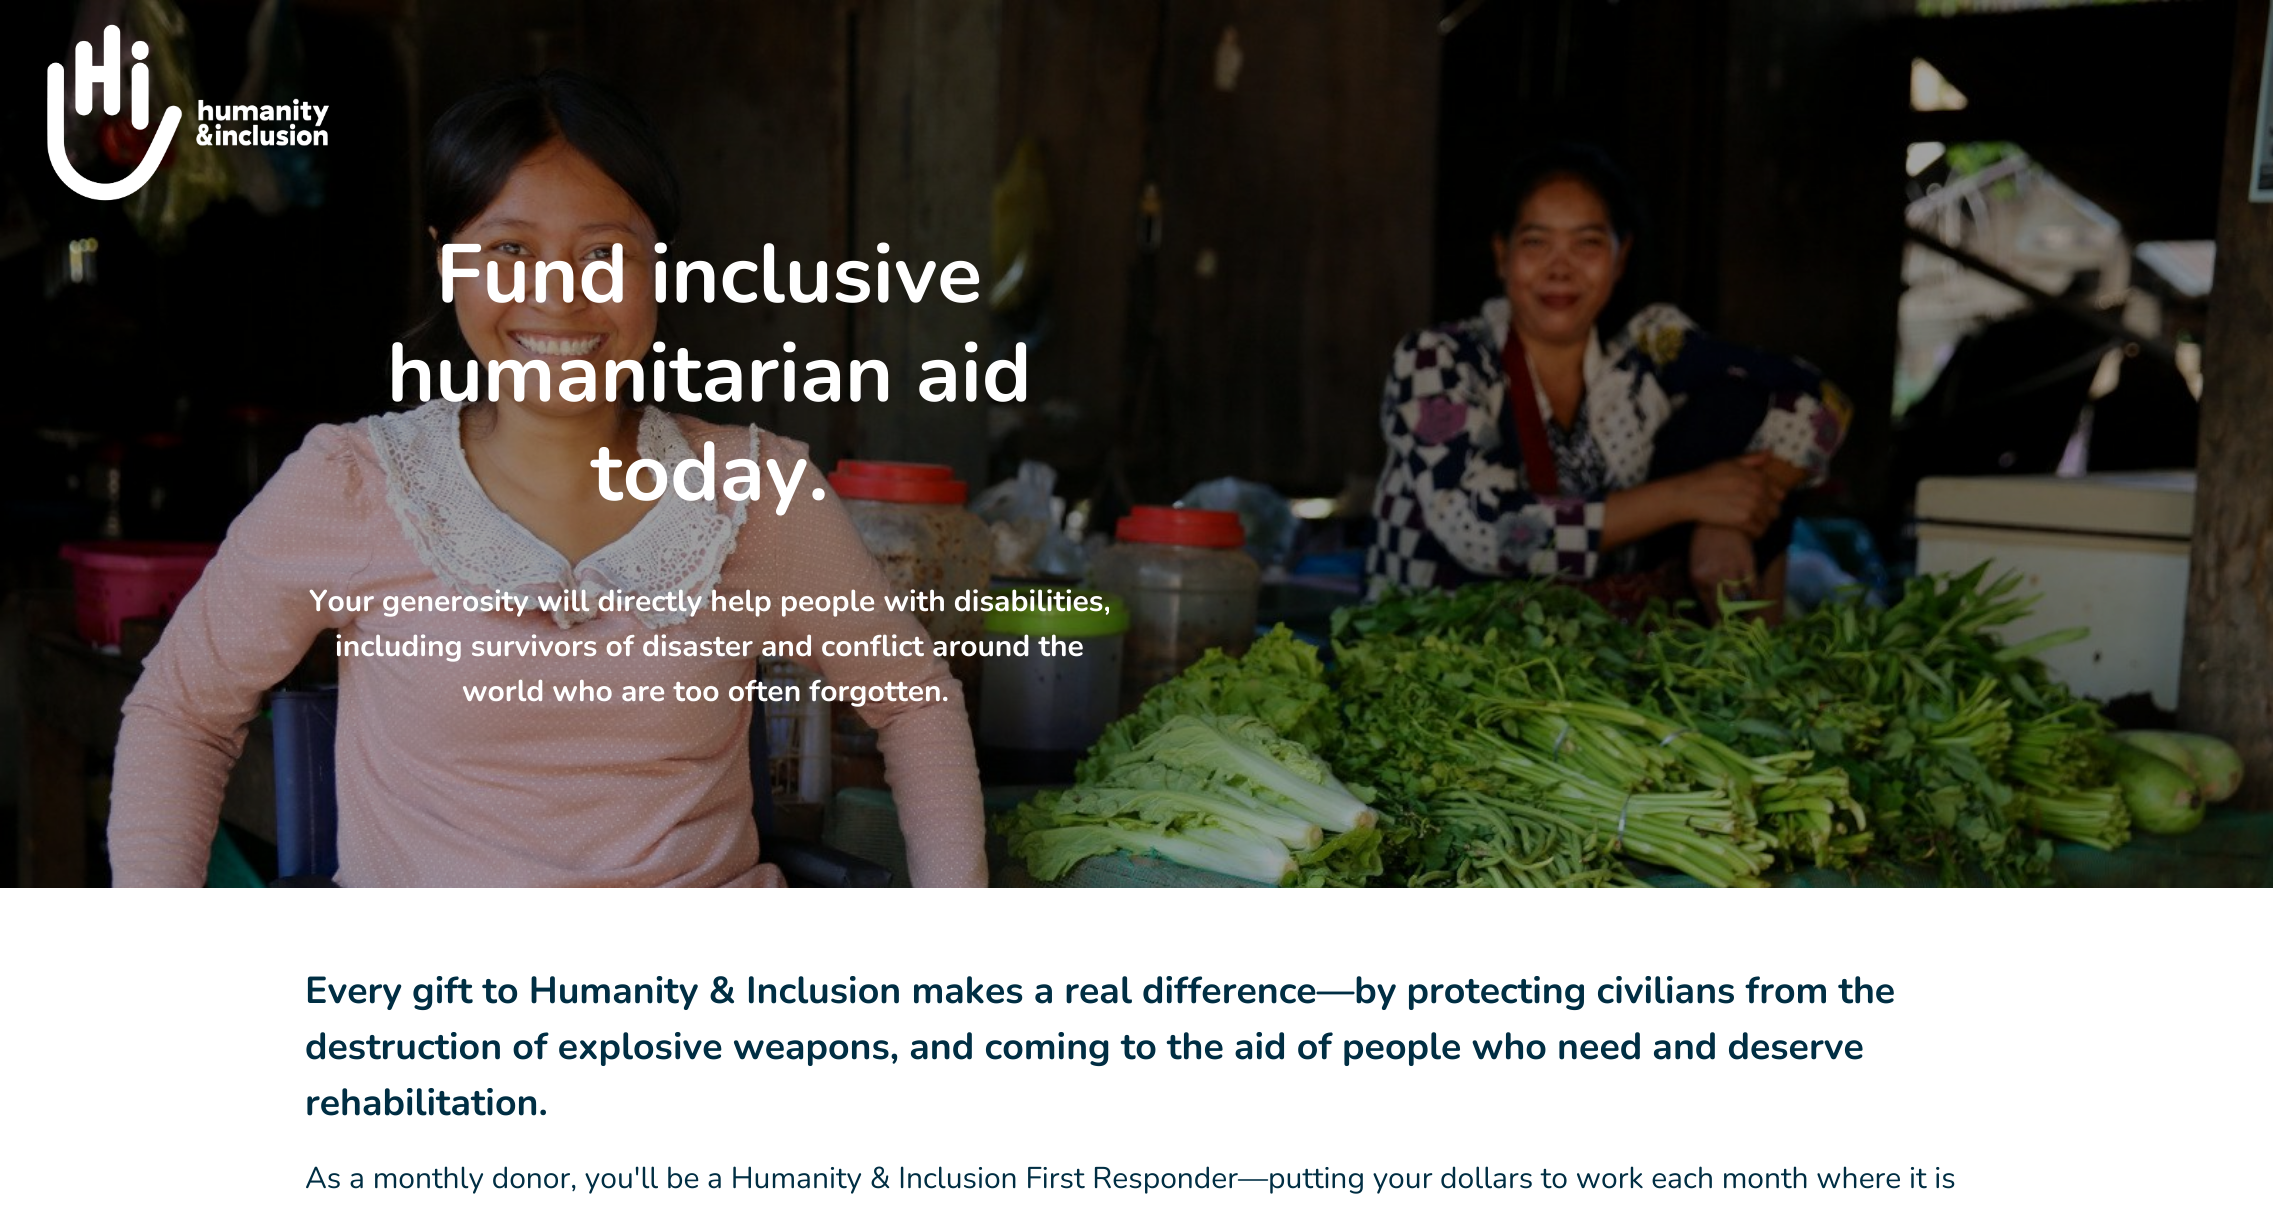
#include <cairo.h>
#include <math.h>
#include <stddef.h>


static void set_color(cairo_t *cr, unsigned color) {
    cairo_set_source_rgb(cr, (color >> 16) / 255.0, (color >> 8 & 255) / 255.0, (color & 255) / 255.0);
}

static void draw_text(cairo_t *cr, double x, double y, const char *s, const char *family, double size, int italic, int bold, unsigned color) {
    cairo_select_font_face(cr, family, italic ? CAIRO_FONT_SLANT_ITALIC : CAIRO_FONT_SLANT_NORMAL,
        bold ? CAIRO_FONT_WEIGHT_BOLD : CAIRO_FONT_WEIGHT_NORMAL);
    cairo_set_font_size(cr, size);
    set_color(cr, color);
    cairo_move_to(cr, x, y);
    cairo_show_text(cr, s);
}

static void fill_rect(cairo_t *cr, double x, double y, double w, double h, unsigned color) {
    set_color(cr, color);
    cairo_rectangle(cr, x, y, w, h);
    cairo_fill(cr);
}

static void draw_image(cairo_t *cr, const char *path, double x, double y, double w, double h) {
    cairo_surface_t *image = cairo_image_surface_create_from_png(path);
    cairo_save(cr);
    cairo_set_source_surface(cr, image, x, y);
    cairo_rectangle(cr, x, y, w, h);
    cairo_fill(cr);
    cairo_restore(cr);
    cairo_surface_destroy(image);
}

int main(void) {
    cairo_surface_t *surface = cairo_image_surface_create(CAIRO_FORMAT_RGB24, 2273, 1209);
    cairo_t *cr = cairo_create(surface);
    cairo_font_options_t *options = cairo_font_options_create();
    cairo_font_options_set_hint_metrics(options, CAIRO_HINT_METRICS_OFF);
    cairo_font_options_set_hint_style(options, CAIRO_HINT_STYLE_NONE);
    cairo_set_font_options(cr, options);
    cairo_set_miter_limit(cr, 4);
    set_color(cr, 0xFFFFFF);
    cairo_paint(cr);
    fill_rect(cr, 0, 0, 2273, 888, 0x000000);
    draw_image(cr, "assets/img1.png", 0, 0, 2273, 888);
    draw_image(cr, "assets/img2.png", 47, 24, 282, 177);
    draw_text(cr, 436, 302, "Fund inclusive", "Nunito", 82.5, 0, 1, 0xFFFFFF);
    draw_text(cr, 387, 401, "humanitarian aid", "Nunito", 82.5, 0, 1, 0xFFFFFF);
    draw_text(cr, 591, 500, "today.", "Nunito", 82.5, 0, 1, 0xFFFFFF);
    draw_text(cr, 309, 611, "Your generosity will directly help people with disabilities,", "Nunito", 30, 0, 1, 0xFFFFFF);
    draw_text(cr, 335, 656, "including survivors of disaster and conflict around the", "Nunito", 30, 0, 1, 0xFFFFFF);
    draw_text(cr, 462, 701, "world who are too often forgotten.", "Nunito", 30, 0, 1, 0xFFFFFF);
    draw_text(cr, 305, 1003, "Every gift to Humanity & Inclusion makes a real difference—by protecting civilians from the", "Nunito", 37.5, 0, 1, 0x002E43);
    draw_text(cr, 305, 1059, "destruction of explosive weapons, and coming to the aid of people who need and deserve", "Nunito", 37.5, 0, 1, 0x002E43);
    draw_text(cr, 305, 1115, "rehabilitation.", "Nunito", 37.5, 0, 1, 0x002E43);
    draw_text(cr, 305, 1188, "As a monthly donor, you'll be a Humanity & Inclusion First Responder—putting your dollars to work each month where it is", "Nunito", 30, 0, 0, 0x002E43);
    cairo_surface_write_to_png(surface, "output.png");
    cairo_font_options_destroy(options);
    cairo_destroy(cr);
    cairo_surface_destroy(surface);
    return 0;
}
